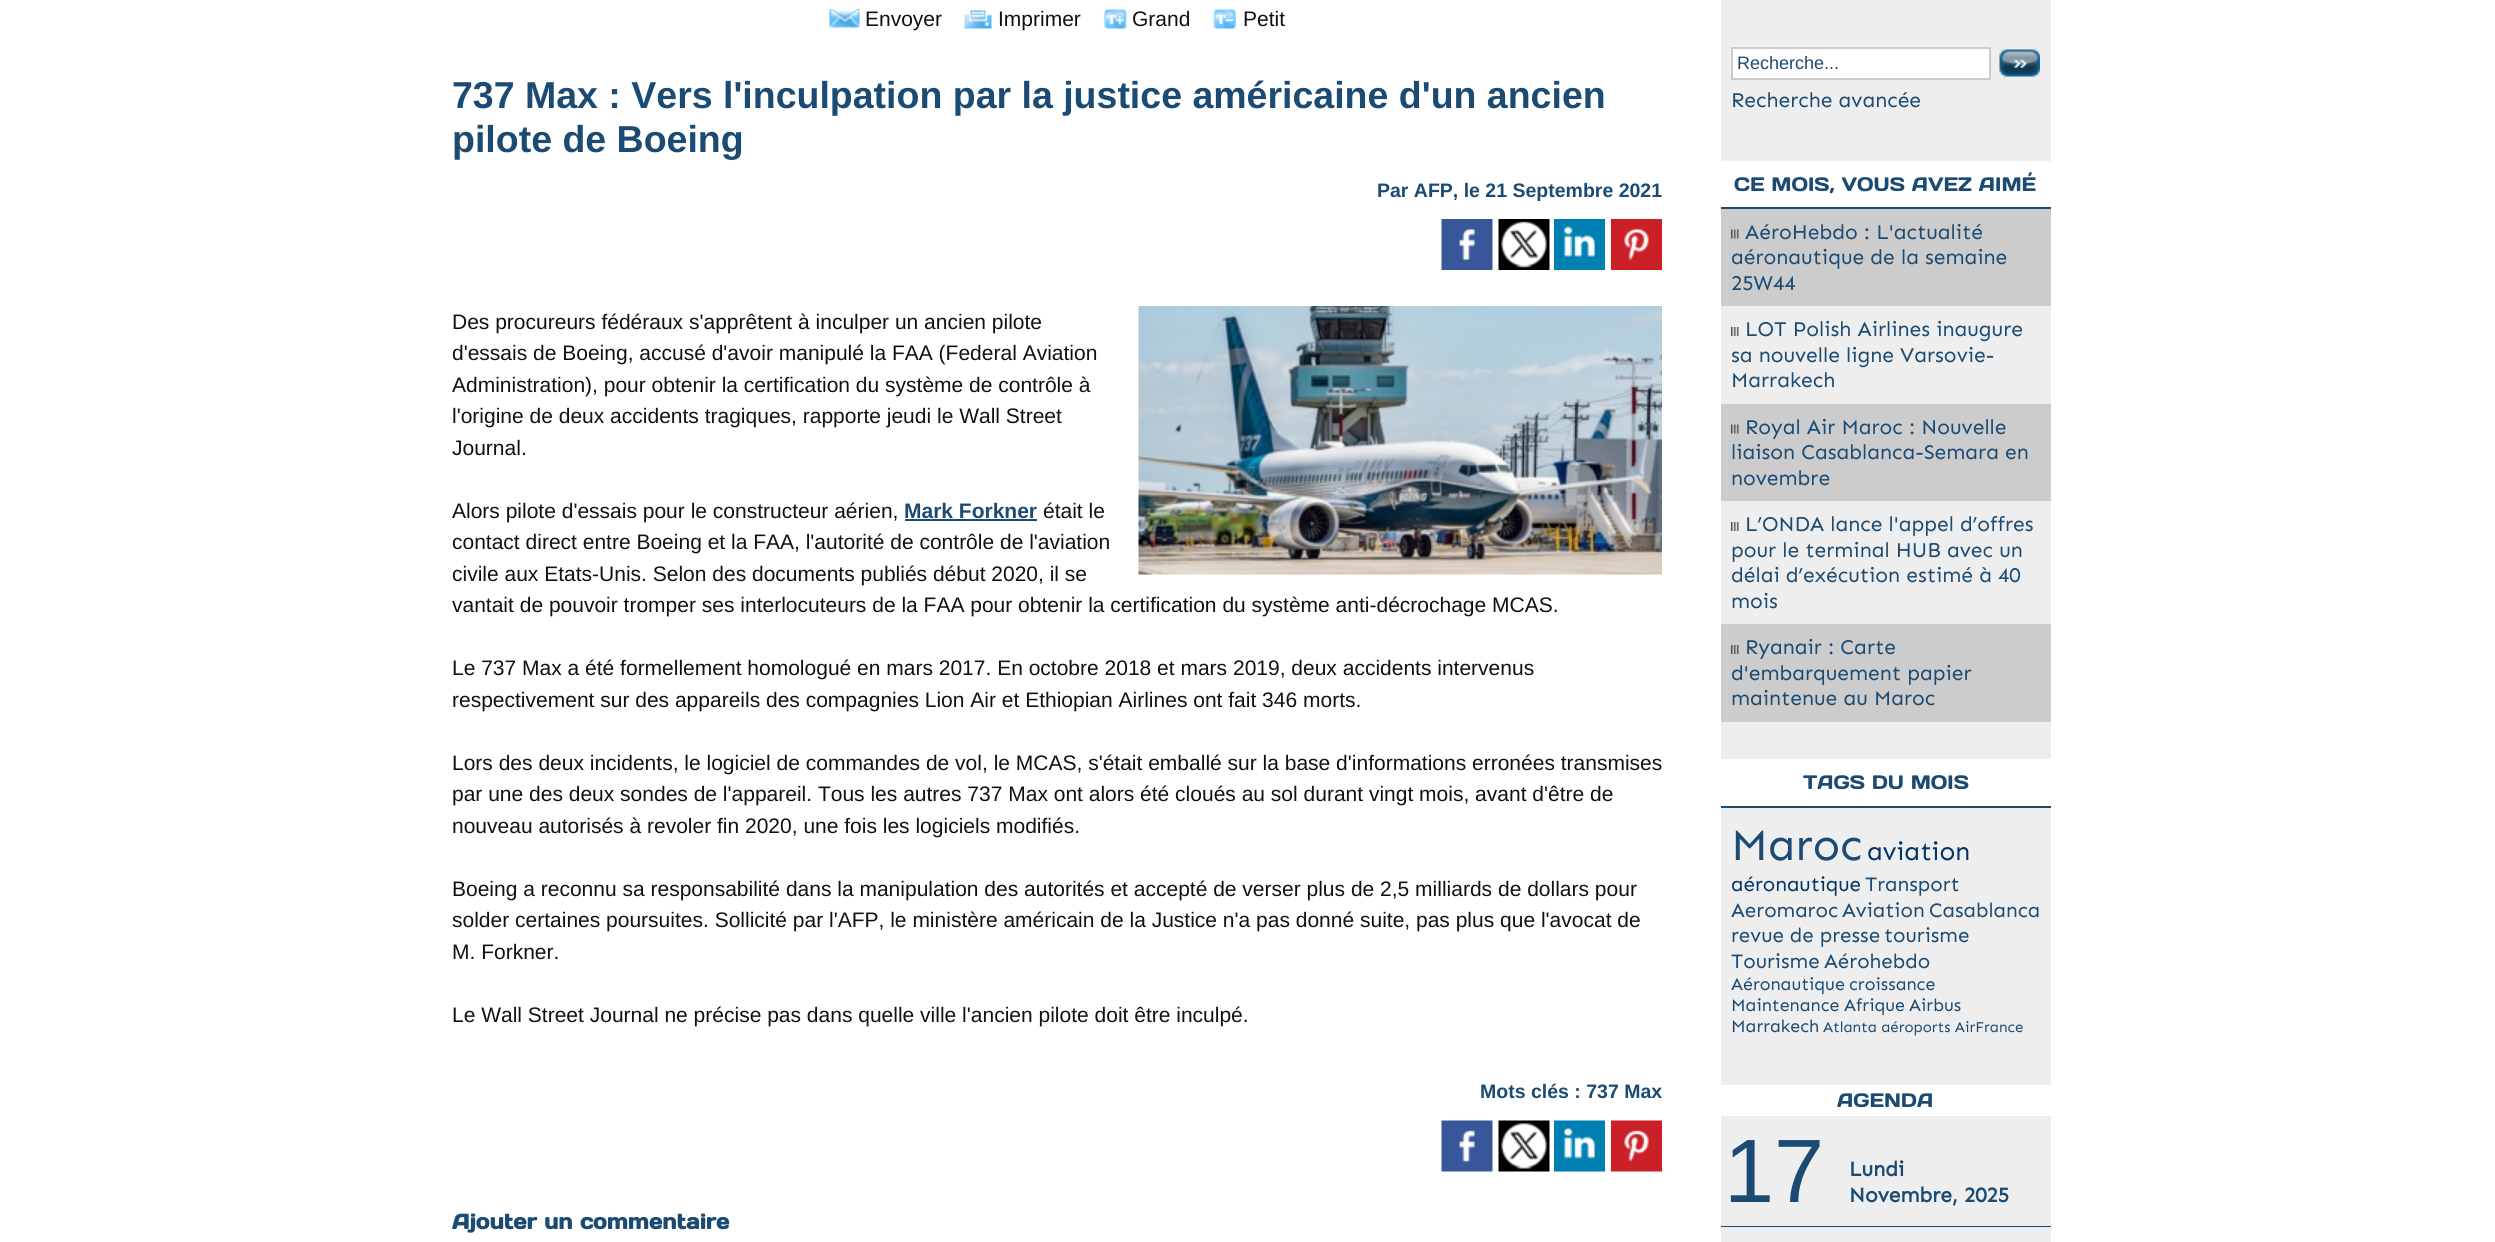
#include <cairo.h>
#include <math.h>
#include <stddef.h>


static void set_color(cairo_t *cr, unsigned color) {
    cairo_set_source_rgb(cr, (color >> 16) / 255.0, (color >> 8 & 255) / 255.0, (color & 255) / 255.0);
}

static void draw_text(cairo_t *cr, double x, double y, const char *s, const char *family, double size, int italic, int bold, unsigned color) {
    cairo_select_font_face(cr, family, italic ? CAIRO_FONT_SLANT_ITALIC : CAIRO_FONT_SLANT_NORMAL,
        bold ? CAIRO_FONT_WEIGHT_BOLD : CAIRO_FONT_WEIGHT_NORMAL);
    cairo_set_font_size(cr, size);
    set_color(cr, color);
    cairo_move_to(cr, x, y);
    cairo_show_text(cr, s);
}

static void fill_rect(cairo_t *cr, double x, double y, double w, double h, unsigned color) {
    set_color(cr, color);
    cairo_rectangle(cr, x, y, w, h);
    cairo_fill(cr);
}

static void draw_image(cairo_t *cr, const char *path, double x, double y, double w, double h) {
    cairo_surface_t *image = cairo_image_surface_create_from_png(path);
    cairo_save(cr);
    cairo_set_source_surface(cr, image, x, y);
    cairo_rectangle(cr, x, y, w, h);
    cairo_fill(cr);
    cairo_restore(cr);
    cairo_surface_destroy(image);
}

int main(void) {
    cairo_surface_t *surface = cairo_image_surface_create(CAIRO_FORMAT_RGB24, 2495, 1242);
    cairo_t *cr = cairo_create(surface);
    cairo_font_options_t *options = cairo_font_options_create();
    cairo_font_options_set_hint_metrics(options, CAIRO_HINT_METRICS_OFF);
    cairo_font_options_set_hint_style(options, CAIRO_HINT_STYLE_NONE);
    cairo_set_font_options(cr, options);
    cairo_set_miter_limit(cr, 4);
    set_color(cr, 0xFFFFFF);
    cairo_paint(cr);
    draw_image(cr, "assets/img1.png", 829, 9, 31, 20);
    draw_text(cr, 865, 26, "Envoyer", "Liberation Sans", 21, 0, 0, 0x111111);
    draw_image(cr, "assets/img2.png", 964, 10, 28, 19);
    draw_text(cr, 998, 26, "Imprimer", "Liberation Sans", 21, 0, 0, 0x111111);
    draw_image(cr, "assets/img3.png", 1104, 9, 23, 20);
    draw_text(cr, 1132, 26, "Grand", "Liberation Sans", 21, 0, 0, 0x111111);
    draw_image(cr, "assets/img4.png", 1213, 9, 23, 20);
    draw_text(cr, 1243, 26, "Petit", "Liberation Sans", 21, 0, 0, 0x111111);
    draw_text(cr, 452, 108, "737 Max : Vers l'inculpation par la justice américaine d'un ancien", "Liberation Sans", 37.5, 0, 1, 0x1B4B73);
    draw_text(cr, 452, 152, "pilote de Boeing", "Liberation Sans", 37.5, 0, 1, 0x1B4B73);
    draw_text(cr, 1377, 197, "Par AFP, le 21 Septembre 2021", "Liberation Sans", 19.5, 0, 1, 0x1B4B73);
    draw_image(cr, "assets/img5.png", 1441, 219, 52, 51);
    draw_image(cr, "assets/img6.png", 1498, 219, 52, 51);
    draw_image(cr, "assets/img7.png", 1554, 219, 51, 51);
    draw_image(cr, "assets/img8.png", 1611, 219, 51, 51);
    draw_image(cr, "assets/img9.png", 1138, 306, 524, 269);
    draw_text(cr, 452, 329, "Des procureurs fédéraux s'apprêtent à inculper un ancien pilote", "Liberation Sans", 21, 0, 0, 0x111111);
    draw_text(cr, 452, 360, "d'essais de Boeing, accusé d'avoir manipulé la FAA (Federal Aviation", "Liberation Sans", 21, 0, 0, 0x111111);
    draw_text(cr, 452, 392, "Administration), pour obtenir la certification du système de contrôle à", "Liberation Sans", 21, 0, 0, 0x111111);
    draw_text(cr, 452, 423, "l'origine de deux accidents tragiques, rapporte jeudi le Wall Street", "Liberation Sans", 21, 0, 0, 0x111111);
    draw_text(cr, 452, 455, "Journal.", "Liberation Sans", 21, 0, 0, 0x111111);
    draw_text(cr, 452, 518, "Alors pilote d'essais pour le constructeur aérien,", "Liberation Sans", 21, 0, 0, 0x111111);
    draw_text(cr, 904, 518, "Mark Forkner", "Liberation Sans", 21, 0, 1, 0x1B4B73);
    fill_rect(cr, 905, 519, 132, 2, 0x1B4B73);
    draw_text(cr, 1043, 518, "était le", "Liberation Sans", 21, 0, 0, 0x111111);
    draw_text(cr, 452, 549, "contact direct entre Boeing et la FAA, l'autorité de contrôle de l'aviation", "Liberation Sans", 21, 0, 0, 0x111111);
    draw_text(cr, 452, 581, "civile aux Etats-Unis. Selon des documents publiés début 2020, il se", "Liberation Sans", 21, 0, 0, 0x111111);
    draw_text(cr, 452, 612, "vantait de pouvoir tromper ses interlocuteurs de la FAA pour obtenir la certification du système anti-décrochage MCAS.", "Liberation Sans", 21, 0, 0, 0x111111);
    draw_text(cr, 452, 675, "Le 737 Max a été formellement homologué en mars 2017. En octobre 2018 et mars 2019, deux accidents intervenus", "Liberation Sans", 21, 0, 0, 0x111111);
    draw_text(cr, 452, 707, "respectivement sur des appareils des compagnies Lion Air et Ethiopian Airlines ont fait 346 morts.", "Liberation Sans", 21, 0, 0, 0x111111);
    draw_text(cr, 452, 770, "Lors des deux incidents, le logiciel de commandes de vol, le MCAS, s'était emballé sur la base d'informations erronées transmises", "Liberation Sans", 21, 0, 0, 0x111111);
    draw_text(cr, 452, 801, "par une des deux sondes de l'appareil. Tous les autres 737 Max ont alors été cloués au sol durant vingt mois, avant d'être de", "Liberation Sans", 21, 0, 0, 0x111111);
    draw_text(cr, 452, 833, "nouveau autorisés à revoler fin 2020, une fois les logiciels modifiés.", "Liberation Sans", 21, 0, 0, 0x111111);
    draw_text(cr, 452, 896, "Boeing a reconnu sa responsabilité dans la manipulation des autorités et accepté de verser plus de 2,5 milliards de dollars pour", "Liberation Sans", 21, 0, 0, 0x111111);
    draw_text(cr, 452, 927, "solder certaines poursuites. Sollicité par l'AFP, le ministère américain de la Justice n'a pas donné suite, pas plus que l'avocat de", "Liberation Sans", 21, 0, 0, 0x111111);
    draw_text(cr, 452, 959, "M. Forkner.", "Liberation Sans", 21, 0, 0, 0x111111);
    draw_text(cr, 452, 1022, "Le Wall Street Journal ne précise pas dans quelle ville l'ancien pilote doit être inculpé.", "Liberation Sans", 21, 0, 0, 0x111111);
    draw_text(cr, 1480, 1098, "Mots clés : 737 Max", "Liberation Sans", 19.5, 0, 1, 0x1B4B73);
    draw_image(cr, "assets/img10.png", 1441, 1120, 52, 52);
    draw_image(cr, "assets/img11.png", 1498, 1120, 52, 52);
    draw_image(cr, "assets/img12.png", 1554, 1120, 51, 52);
    draw_image(cr, "assets/img13.png", 1611, 1120, 51, 52);
    draw_text(cr, 452, 1229, "Ajouter un commentaire", "Days One", 21, 0, 1, 0x1B4B73);
    fill_rect(cr, 1721, 0, 330, 1226, 0xEEEEEE);
    set_color(cr, 0xFFFFFF);
    cairo_rectangle(cr, 1732, 48, 258, 31);
    cairo_fill_preserve(cr);
    set_color(cr, 0xCCCCCC);
    cairo_stroke(cr);
    draw_text(cr, 1737, 69, "Recherche...", "Liberation Sans", 18, 0, 0, 0x1B4B73);
    draw_image(cr, "assets/img14.png", 1999, 49, 41, 28);
    draw_text(cr, 1731, 107, "Recherche avancée", "Sen", 21, 0, 0, 0x1B4B73);
    fill_rect(cr, 1721, 161, 330, 46, 0xFFFFFF);
    fill_rect(cr, 1721, 207, 330, 2, 0x1B4B73);
    draw_text(cr, 1734, 191, "CE MOIS, VOUS AVEZ AIMÉ", "Days One", 19.5, 0, 0, 0x1B4B73);
    fill_rect(cr, 1721, 209, 330, 97, 0xCCCCCC);
    draw_image(cr, "assets/img15.png", 1731, 229, 8, 10);
    draw_text(cr, 1745, 239, "AéroHebdo : L'actualité", "Sen", 21, 0, 0, 0x1B4B73);
    draw_text(cr, 1731, 264, "aéronautique de la semaine", "Sen", 21, 0, 0, 0x1B4B73);
    draw_text(cr, 1731, 290, "25W44", "Sen", 21, 0, 0, 0x1B4B73);
    draw_image(cr, "assets/img16.png", 1731, 327, 8, 9);
    draw_text(cr, 1745, 336, "LOT Polish Airlines inaugure", "Sen", 21, 0, 0, 0x1B4B73);
    draw_text(cr, 1731, 362, "sa nouvelle ligne Varsovie-", "Sen", 21, 0, 0, 0x1B4B73);
    draw_text(cr, 1731, 387, "Marrakech", "Sen", 21, 0, 0, 0x1B4B73);
    fill_rect(cr, 1721, 404, 330, 97, 0xCCCCCC);
    draw_image(cr, "assets/img15.png", 1731, 424, 8, 10);
    draw_text(cr, 1745, 434, "Royal Air Maroc : Nouvelle", "Sen", 21, 0, 0, 0x1B4B73);
    draw_text(cr, 1731, 459, "liaison Casablanca-Semara en", "Sen", 21, 0, 0, 0x1B4B73);
    draw_text(cr, 1731, 485, "novembre", "Sen", 21, 0, 0, 0x1B4B73);
    draw_image(cr, "assets/img16.png", 1731, 522, 8, 9);
    draw_text(cr, 1745, 531, "L’ONDA lance l'appel d’offres", "Sen", 21, 0, 0, 0x1B4B73);
    draw_text(cr, 1731, 557, "pour le terminal HUB avec un", "Sen", 21, 0, 0, 0x1B4B73);
    draw_text(cr, 1731, 582, "délai d’exécution estimé à 40", "Sen", 21, 0, 0, 0x1B4B73);
    draw_text(cr, 1731, 608, "mois", "Sen", 21, 0, 0, 0x1B4B73);
    fill_rect(cr, 1721, 624, 330, 98, 0xCCCCCC);
    draw_image(cr, "assets/img17.png", 1731, 645, 8, 9);
    draw_text(cr, 1745, 654, "Ryanair : Carte", "Sen", 21, 0, 0, 0x1B4B73);
    draw_text(cr, 1731, 680, "d'embarquement papier", "Sen", 21, 0, 0, 0x1B4B73);
    draw_text(cr, 1731, 705, "maintenue au Maroc", "Sen", 21, 0, 0, 0x1B4B73);
    fill_rect(cr, 1721, 759, 330, 47, 0xFFFFFF);
    fill_rect(cr, 1721, 806, 330, 2, 0x1B4B73);
    draw_text(cr, 1803, 789, "TAGS DU MOIS", "Days One", 19.5, 0, 0, 0x1B4B73);
    draw_text(cr, 1731, 860, "Maroc", "Sen", 45, 0, 0, 0x1B4B73);
    draw_text(cr, 1867, 860, "aviation", "Sen", 26, 0, 0, 0x003466);
    draw_text(cr, 1731, 891, "aéronautique", "Sen", 20.5, 0, 0, 0x003466);
    draw_text(cr, 1865, 891, "Transport", "Sen", 20.5, 0, 0, 0x1B4B73);
    draw_text(cr, 1731, 917, "Aeromaroc", "Sen", 20.5, 0, 0, 0x1B4B73);
    draw_text(cr, 1842, 917, "Aviation", "Sen", 20.5, 0, 0, 0x1B4B73);
    draw_text(cr, 1929, 917, "Casablanca", "Sen", 20.5, 0, 0, 0x1B4B73);
    draw_text(cr, 1731, 942, "revue de presse", "Sen", 20.5, 0, 0, 0x1B4B73);
    draw_text(cr, 1884, 942, "tourisme", "Sen", 20.5, 0, 0, 0x1B4B73);
    draw_text(cr, 1731, 968, "Tourisme", "Sen", 20.5, 0, 0, 0x1B4B73);
    draw_text(cr, 1824, 968, "Aérohebdo", "Sen", 20.5, 0, 0, 0x1B4B73);
    draw_text(cr, 1731, 990, "Aéronautique", "Sen", 17.75, 0, 0, 0x1B4B73);
    draw_text(cr, 1849, 990, "croissance", "Sen", 17.75, 0, 0, 0x1B4B73);
    draw_text(cr, 1731, 1011, "Maintenance", "Sen", 17.75, 0, 0, 0x1B4B73);
    draw_text(cr, 1844, 1011, "Afrique", "Sen", 17.75, 0, 0, 0x1B4B73);
    draw_text(cr, 1909, 1011, "Airbus", "Sen", 17.75, 0, 0, 0x1B4B73);
    draw_text(cr, 1731, 1032, "Marrakech", "Sen", 17.75, 0, 0, 0x1B4B73);
    draw_text(cr, 1823, 1032, "Atlanta aéroports AirFrance", "Sen", 15, 0, 0, 0x1B4B73);
    fill_rect(cr, 1721, 1085, 330, 31, 0xFFFFFF);
    draw_text(cr, 1837, 1107, "AGENDA", "Days One", 19.5, 0, 0, 0x1B4B73);
    fill_rect(cr, 1721, 1226, 330, 1, 0x1B4B73);
    draw_text(cr, 1724, 1202, "17", "Liberation Sans", 90, 0, 0, 0x1B4B73);
    draw_text(cr, 1849, 1176, "Lundi", "Sen", 21, 0, 1, 0x1B4B73);
    draw_text(cr, 1849, 1202, "Novembre, 2025", "Sen", 21, 0, 1, 0x1B4B73);
    fill_rect(cr, 1721, 1227, 330, 15, 0xEEEEEE);
    cairo_surface_write_to_png(surface, "output.png");
    cairo_font_options_destroy(options);
    cairo_destroy(cr);
    cairo_surface_destroy(surface);
    return 0;
}
